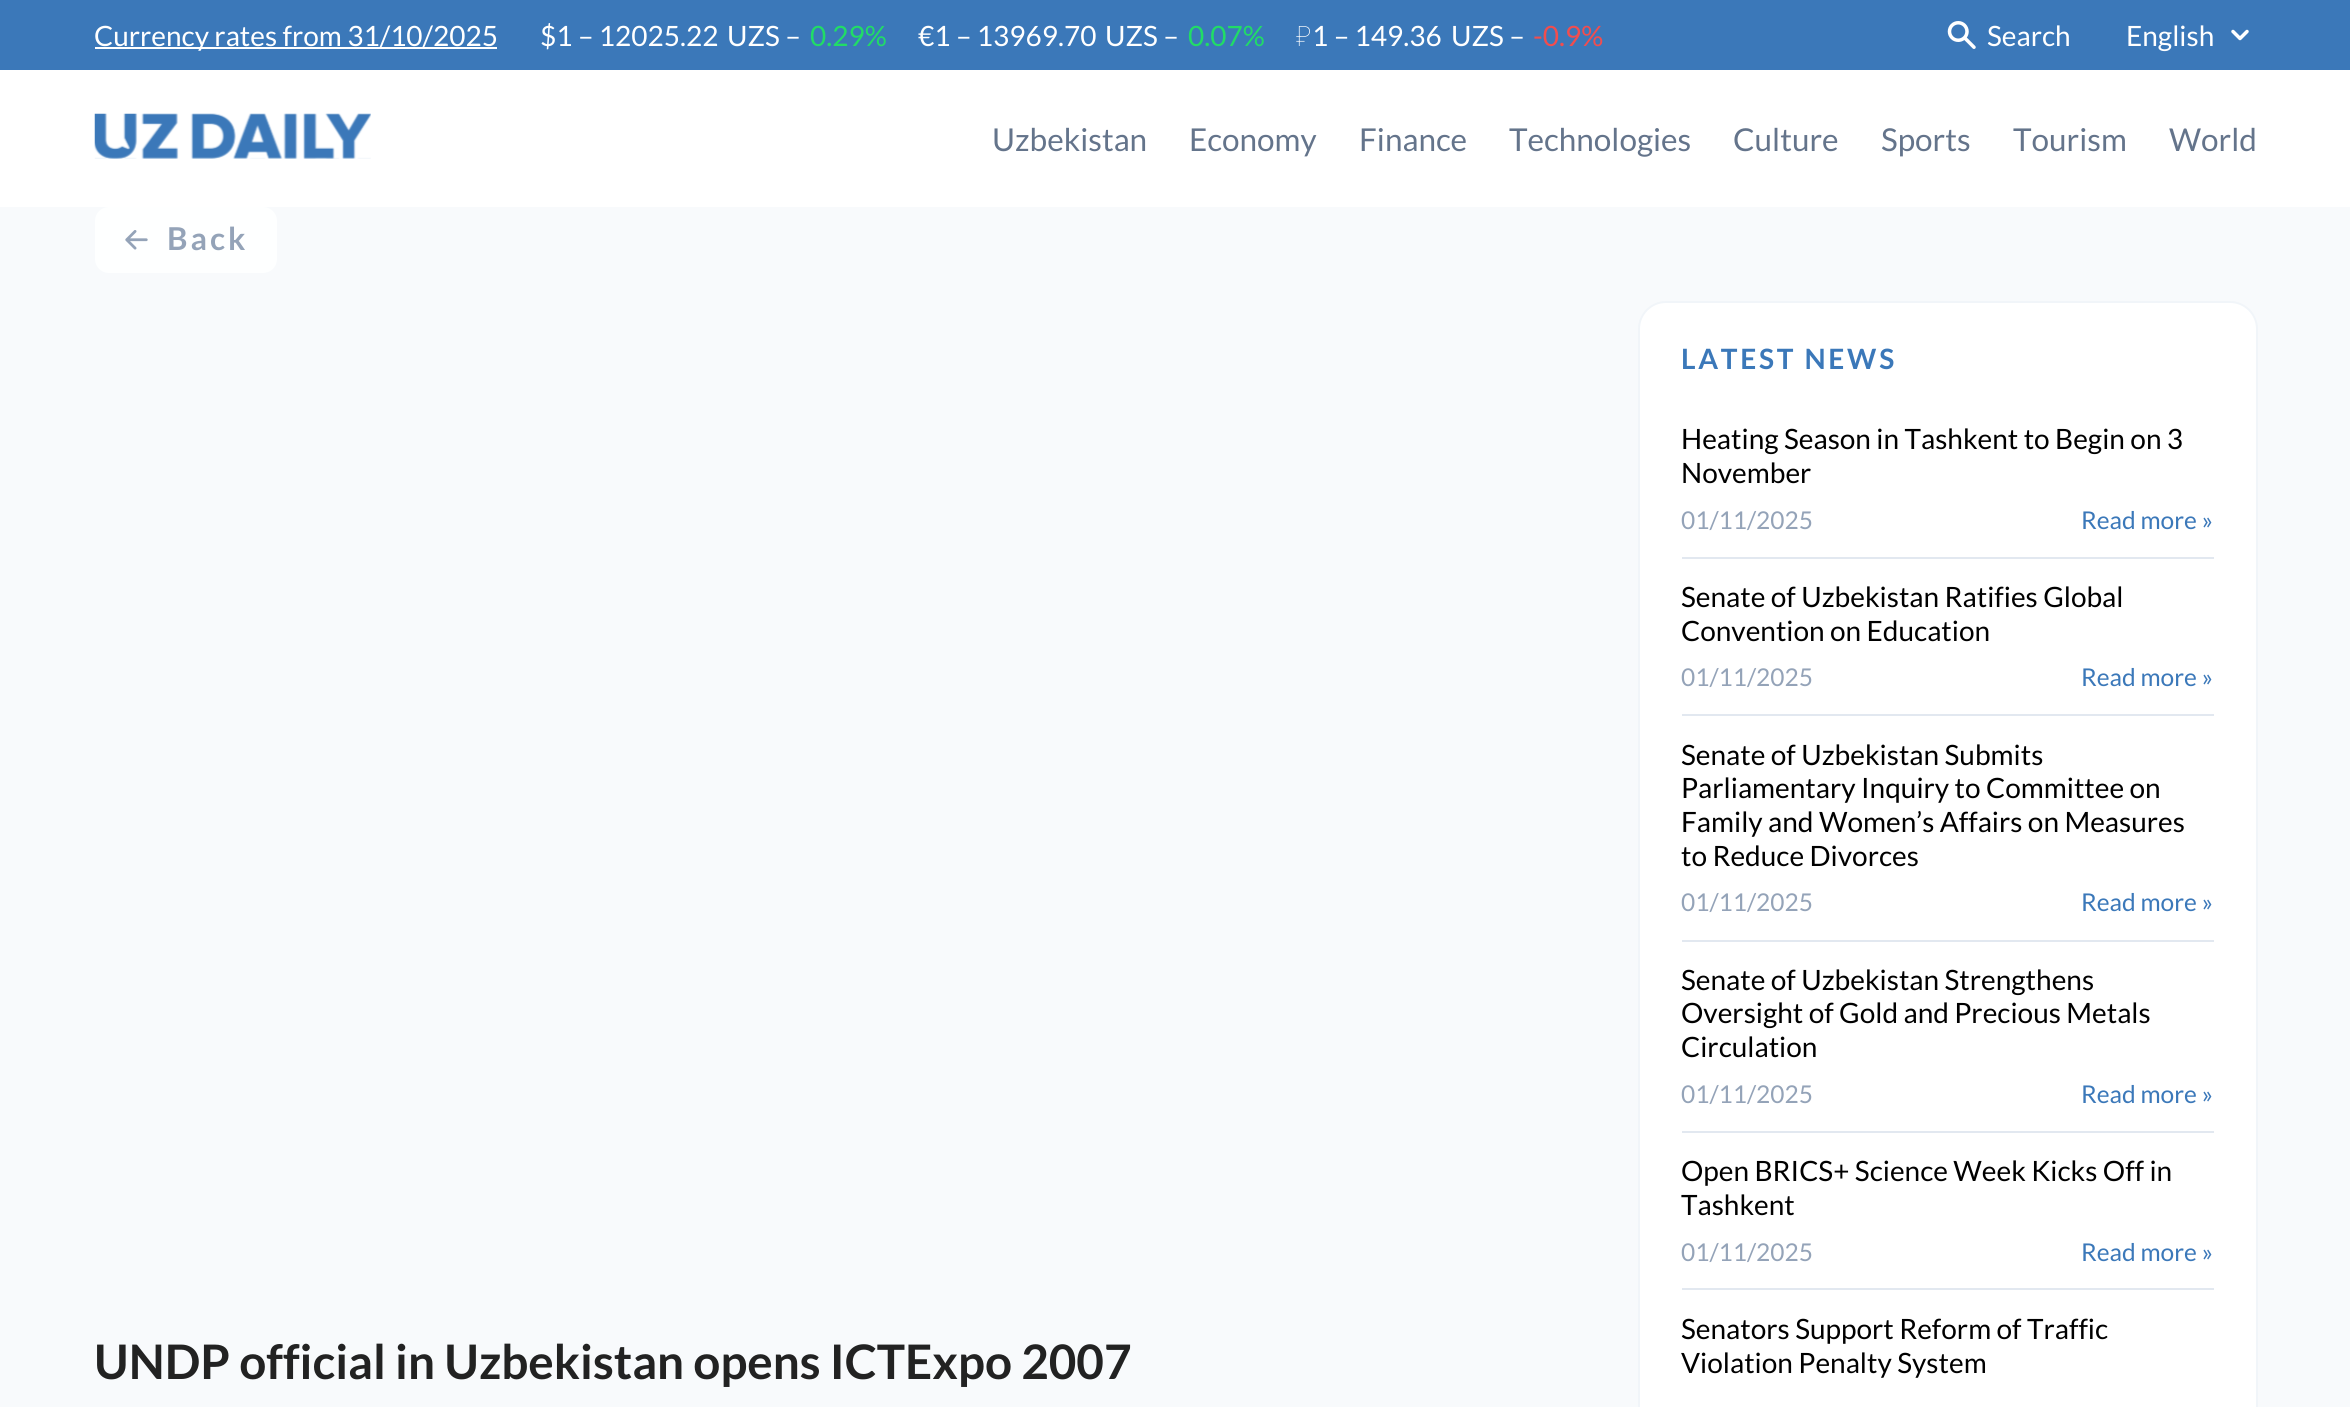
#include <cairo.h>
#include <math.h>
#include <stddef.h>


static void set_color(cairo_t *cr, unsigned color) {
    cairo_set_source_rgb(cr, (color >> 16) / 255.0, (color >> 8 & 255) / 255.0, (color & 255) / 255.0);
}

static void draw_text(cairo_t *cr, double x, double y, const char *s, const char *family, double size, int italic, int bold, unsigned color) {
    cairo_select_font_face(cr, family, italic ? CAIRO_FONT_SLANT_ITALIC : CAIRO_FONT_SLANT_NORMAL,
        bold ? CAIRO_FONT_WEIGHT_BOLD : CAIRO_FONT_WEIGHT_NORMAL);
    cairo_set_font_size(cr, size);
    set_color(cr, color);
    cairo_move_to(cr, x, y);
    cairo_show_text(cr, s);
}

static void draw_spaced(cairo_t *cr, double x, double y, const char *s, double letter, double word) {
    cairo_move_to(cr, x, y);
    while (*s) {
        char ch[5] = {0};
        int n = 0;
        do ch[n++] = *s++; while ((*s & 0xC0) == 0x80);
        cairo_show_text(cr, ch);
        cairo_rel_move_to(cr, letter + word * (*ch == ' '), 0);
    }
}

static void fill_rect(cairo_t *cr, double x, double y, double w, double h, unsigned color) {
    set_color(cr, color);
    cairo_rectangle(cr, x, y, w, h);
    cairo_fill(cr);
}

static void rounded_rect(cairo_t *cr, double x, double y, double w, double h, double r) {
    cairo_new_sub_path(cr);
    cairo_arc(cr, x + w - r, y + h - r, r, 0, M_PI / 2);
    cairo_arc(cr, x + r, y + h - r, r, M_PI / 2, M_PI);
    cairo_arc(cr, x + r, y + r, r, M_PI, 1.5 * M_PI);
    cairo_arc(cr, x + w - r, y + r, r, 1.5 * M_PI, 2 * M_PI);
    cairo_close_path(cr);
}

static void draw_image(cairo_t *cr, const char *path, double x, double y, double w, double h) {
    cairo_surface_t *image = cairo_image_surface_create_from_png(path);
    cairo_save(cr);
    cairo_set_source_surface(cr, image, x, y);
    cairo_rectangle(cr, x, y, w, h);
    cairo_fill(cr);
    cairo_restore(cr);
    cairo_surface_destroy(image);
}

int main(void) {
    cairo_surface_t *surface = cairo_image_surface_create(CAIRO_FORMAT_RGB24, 2350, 1407);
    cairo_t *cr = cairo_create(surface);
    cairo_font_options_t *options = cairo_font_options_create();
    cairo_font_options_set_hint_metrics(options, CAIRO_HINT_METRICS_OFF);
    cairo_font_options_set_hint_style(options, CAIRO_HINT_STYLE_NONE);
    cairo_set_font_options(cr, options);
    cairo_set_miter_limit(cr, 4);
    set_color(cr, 0xF8FAFC);
    cairo_paint(cr);
    fill_rect(cr, 0, 70, 2350, 137, 0xFFFFFF);
    fill_rect(cr, 0, 0, 2350, 70, 0x3B78B9);
    fill_rect(cr, 95, 47, 402, 2, 0xFFFFFF);
    draw_text(cr, 94, 46, "Currency rates from 31/10/2025", "Lato", 28, 0, 0, 0xFFFFFF);
    draw_text(cr, 540, 46, "$1 – 12025.22", "Lato", 28, 0, 0, 0xFFFFFF);
    draw_text(cr, 727, 46, "UZS –", "Lato", 28, 0, 0, 0xFFFFFF);
    draw_text(cr, 810, 46, "0.29%", "Lato", 28, 0, 0, 0x21DC66);
    draw_text(cr, 918, 46, "€1 – 13969.70", "Lato", 28, 0, 0, 0xFFFFFF);
    draw_text(cr, 1105, 46, "UZS –", "Lato", 28, 0, 0, 0xFFFFFF);
    draw_text(cr, 1188, 46, "0.07%", "Lato", 28, 0, 0, 0x21DC66);
    draw_text(cr, 1296, 46, "₽", "Noto Sans Thin", 28, 0, 0, 0xFFFFFF);
    draw_text(cr, 1312, 46, "1 – 149.36", "Lato", 28, 0, 0, 0xFFFFFF);
    draw_text(cr, 1451, 46, "UZS –", "Lato", 28, 0, 0, 0xFFFFFF);
    draw_text(cr, 1533, 46, "-0.9%", "Lato", 28, 0, 0, 0xF24D4E);
    draw_image(cr, "assets/img1.png", 1947, 21, 29, 28);
    draw_text(cr, 1987, 46, "Search", "Lato", 28, 0, 0, 0xFFFFFF);
    draw_text(cr, 2126, 46, "English", "Lato", 28, 0, 0, 0xFFFFFF);
    draw_image(cr, "assets/img2.png", 2231, 29, 18, 12);
    draw_image(cr, "assets/img3.png", 94, 113, 277, 46);
    draw_text(cr, 992, 151, "Uzbekistan", "Lato", 31.5, 0, 0, 0x64748B);
    draw_text(cr, 1189, 151, "Economy", "Lato", 31.5, 0, 0, 0x64748B);
    draw_text(cr, 1359, 151, "Finance", "Lato", 31.5, 0, 0, 0x64748B);
    draw_text(cr, 1509, 151, "Technologies", "Lato", 31.5, 0, 0, 0x64748B);
    draw_text(cr, 1733, 151, "Culture", "Lato", 31.5, 0, 0, 0x64748B);
    draw_text(cr, 1881, 151, "Sports", "Lato", 31.5, 0, 0, 0x64748B);
    draw_text(cr, 2013, 151, "Tourism", "Lato", 31.5, 0, 0, 0x64748B);
    draw_text(cr, 2169, 151, "World", "Lato", 31.5, 0, 0, 0x64748B);
    set_color(cr, 0xFEFFFF);
    rounded_rect(cr, 95, 207, 182, 66, 14);
    cairo_fill(cr);
    draw_image(cr, "assets/img4.png", 125, 230, 23, 20);
    cairo_select_font_face(cr, "Lato", CAIRO_FONT_SLANT_NORMAL, CAIRO_FONT_WEIGHT_BOLD);
    set_color(cr, 0x94A3B8);
    draw_spaced(cr, 167, 250, "Back", 3, 0);
    draw_text(cr, 94, 1379, "UNDP official in Uzbekistan opens ICTExpo 2007", "Lato", 47.6, 0, 1, 0x222222);
    set_color(cr, 0xFFFFFF);
    rounded_rect(cr, 1639, 302, 618, 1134, 27);
    cairo_fill_preserve(cr);
    set_color(cr, 0xF1F5F9);
    cairo_stroke(cr);
    cairo_set_font_size(cr, 28);
    set_color(cr, 0x3B78B9);
    draw_spaced(cr, 1681, 369, "LATEST NEWS", 2.75, 0);
    fill_rect(cr, 1682, 557, 532, 2, 0xE2E8F0);
    draw_text(cr, 1681, 449, "Heating Season in Tashkent to Begin on 3", "Lato", 28, 0, 0, 0x000000);
    draw_text(cr, 1681, 483, "November", "Lato", 28, 0, 0, 0x000000);
    draw_text(cr, 1681, 529, "01/11/2025", "Lato", 24.5, 0, 0, 0x94A3B8);
    draw_text(cr, 2081, 529, "Read more »", "Lato", 24.5, 0, 0, 0x3B78B9);
    fill_rect(cr, 1682, 714, 532, 2, 0xE2E8F0);
    draw_text(cr, 1681, 607, "Senate of Uzbekistan Ratifies Global", "Lato", 28, 0, 0, 0x000000);
    draw_text(cr, 1681, 641, "Convention on Education", "Lato", 28, 0, 0, 0x000000);
    draw_text(cr, 1681, 686, "01/11/2025", "Lato", 24.5, 0, 0, 0x94A3B8);
    draw_text(cr, 2081, 686, "Read more »", "Lato", 24.5, 0, 0, 0x3B78B9);
    fill_rect(cr, 1682, 940, 532, 2, 0xE2E8F0);
    draw_text(cr, 1681, 765, "Senate of Uzbekistan Submits", "Lato", 28, 0, 0, 0x000000);
    draw_text(cr, 1681, 798, "Parliamentary Inquiry to Committee on", "Lato", 28, 0, 0, 0x000000);
    draw_text(cr, 1681, 832, "Family and Women’s Affairs on Measures", "Lato", 28, 0, 0, 0x000000);
    draw_text(cr, 1681, 866, "to Reduce Divorces", "Lato", 28, 0, 0, 0x000000);
    draw_text(cr, 1681, 911, "01/11/2025", "Lato", 24.5, 0, 0, 0x94A3B8);
    draw_text(cr, 2081, 911, "Read more »", "Lato", 24.5, 0, 0, 0x3B78B9);
    fill_rect(cr, 1682, 1131, 532, 2, 0xE2E8F0);
    draw_text(cr, 1681, 990, "Senate of Uzbekistan Strengthens", "Lato", 28, 0, 0, 0x000000);
    draw_text(cr, 1681, 1023, "Oversight of Gold and Precious Metals", "Lato", 28, 0, 0, 0x000000);
    draw_text(cr, 1681, 1057, "Circulation", "Lato", 28, 0, 0, 0x000000);
    draw_text(cr, 1681, 1103, "01/11/2025", "Lato", 24.5, 0, 0, 0x94A3B8);
    draw_text(cr, 2081, 1103, "Read more »", "Lato", 24.5, 0, 0, 0x3B78B9);
    fill_rect(cr, 1682, 1288, 532, 2, 0xE2E8F0);
    draw_text(cr, 1681, 1181, "Open BRICS+ Science Week Kicks Off in", "Lato", 28, 0, 0, 0x000000);
    draw_text(cr, 1681, 1215, "Tashkent", "Lato", 28, 0, 0, 0x000000);
    draw_text(cr, 1681, 1261, "01/11/2025", "Lato", 24.5, 0, 0, 0x94A3B8);
    draw_text(cr, 2081, 1261, "Read more »", "Lato", 24.5, 0, 0, 0x3B78B9);
    draw_text(cr, 1681, 1339, "Senators Support Reform of Traffic", "Lato", 28, 0, 0, 0x000000);
    draw_text(cr, 1681, 1373, "Violation Penalty System", "Lato", 28, 0, 0, 0x000000);
    cairo_surface_write_to_png(surface, "output.png");
    cairo_font_options_destroy(options);
    cairo_destroy(cr);
    cairo_surface_destroy(surface);
    return 0;
}
